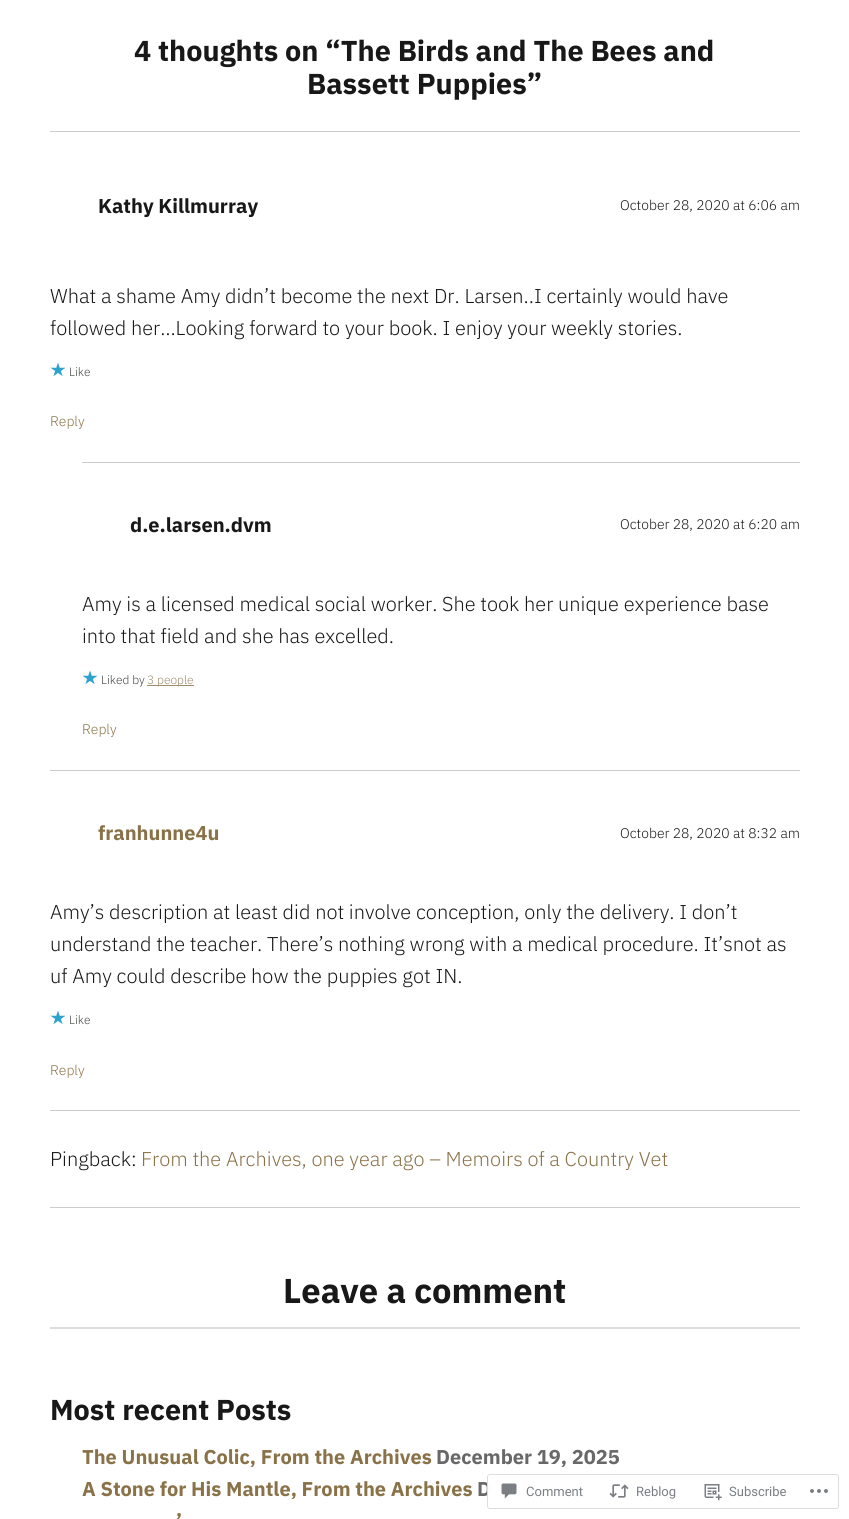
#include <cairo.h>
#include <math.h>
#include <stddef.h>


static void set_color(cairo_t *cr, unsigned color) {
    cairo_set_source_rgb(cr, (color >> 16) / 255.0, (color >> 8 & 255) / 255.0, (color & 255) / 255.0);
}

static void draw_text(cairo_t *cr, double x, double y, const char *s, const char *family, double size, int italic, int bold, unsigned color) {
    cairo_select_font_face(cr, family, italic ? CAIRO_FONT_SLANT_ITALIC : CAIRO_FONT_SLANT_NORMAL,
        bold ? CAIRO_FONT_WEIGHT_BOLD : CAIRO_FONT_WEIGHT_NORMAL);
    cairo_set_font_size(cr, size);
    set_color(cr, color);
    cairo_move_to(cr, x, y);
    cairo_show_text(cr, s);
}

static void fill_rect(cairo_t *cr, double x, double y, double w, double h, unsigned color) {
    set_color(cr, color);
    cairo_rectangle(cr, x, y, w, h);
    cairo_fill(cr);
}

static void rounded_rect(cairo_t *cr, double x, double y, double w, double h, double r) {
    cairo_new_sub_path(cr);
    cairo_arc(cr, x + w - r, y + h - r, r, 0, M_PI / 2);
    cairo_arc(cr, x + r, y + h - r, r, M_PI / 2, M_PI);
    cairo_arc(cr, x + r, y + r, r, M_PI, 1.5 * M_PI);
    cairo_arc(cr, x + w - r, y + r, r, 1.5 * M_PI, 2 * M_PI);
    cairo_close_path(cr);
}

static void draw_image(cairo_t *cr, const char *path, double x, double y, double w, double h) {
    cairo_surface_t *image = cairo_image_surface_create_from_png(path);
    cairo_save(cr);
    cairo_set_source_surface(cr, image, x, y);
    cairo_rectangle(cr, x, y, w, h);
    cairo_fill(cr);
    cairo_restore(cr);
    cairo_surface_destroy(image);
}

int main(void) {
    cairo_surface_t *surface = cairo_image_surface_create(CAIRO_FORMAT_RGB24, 849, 1519);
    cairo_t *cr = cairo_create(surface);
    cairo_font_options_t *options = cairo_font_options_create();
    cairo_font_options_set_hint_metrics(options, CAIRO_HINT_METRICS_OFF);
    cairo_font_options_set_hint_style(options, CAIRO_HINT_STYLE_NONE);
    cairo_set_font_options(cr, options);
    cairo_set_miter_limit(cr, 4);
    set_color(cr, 0xFFFFFF);
    cairo_paint(cr);
    draw_text(cr, 134, 61, "4 thoughts on “The Birds and The Bees and", "IBM Plex Sans", 28.8, 0, 1, 0x181818);
    draw_text(cr, 307, 94, "Bassett Puppies”", "IBM Plex Sans", 28.8, 0, 1, 0x181818);
    fill_rect(cr, 50, 1207, 750, 1, 0xCCCCCC);
    fill_rect(cr, 50, 131, 750, 1, 0xCCCCCC);
    draw_text(cr, 98, 213, "Kathy Killmurray", "IBM Plex Sans", 20, 0, 1, 0x181818);
    draw_text(cr, 620, 210, "October 28, 2020 at 6:06 am", "IBM Plex Sans Light", 13.9, 0, 0, 0x181818);
    draw_text(cr, 50, 303, "What a shame Amy didn’t become the next Dr. Larsen..I certainly would have", "IBM Plex Sans Light", 20, 0, 0, 0x181818);
    draw_text(cr, 50, 335, "followed her…Looking forward to your book. I enjoy your weekly stories.", "IBM Plex Sans Light", 20, 0, 0, 0x181818);
    draw_image(cr, "assets/img1.png", 50, 362, 16, 15);
    draw_text(cr, 69, 376, "Like", "IBM Plex Sans Light", 12, 0, 0, 0x464646);
    draw_text(cr, 50, 426, "Reply", "IBM Plex Sans Light", 13.9, 0, 0, 0x897248);
    fill_rect(cr, 82, 462, 718, 1, 0xCCCCCC);
    draw_text(cr, 130, 532, "d.e.larsen.dvm", "IBM Plex Sans", 20, 0, 1, 0x181818);
    draw_text(cr, 620, 529, "October 28, 2020 at 6:20 am", "IBM Plex Sans Light", 13.9, 0, 0, 0x181818);
    draw_text(cr, 82, 611, "Amy is a licensed medical social worker. She took her unique experience base", "IBM Plex Sans Light", 20, 0, 0, 0x181818);
    draw_text(cr, 82, 643, "into that field and she has excelled.", "IBM Plex Sans Light", 20, 0, 0, 0x181818);
    draw_image(cr, "assets/img1.png", 82, 670, 16, 15);
    draw_text(cr, 101, 684, "Liked by", "IBM Plex Sans Light", 12, 0, 0, 0x464646);
    fill_rect(cr, 147, 685, 47, 1, 0xA18E6D);
    draw_text(cr, 147, 684, "3 people", "IBM Plex Sans Light", 12, 0, 0, 0xA18E6D);
    draw_text(cr, 82, 734, "Reply", "IBM Plex Sans Light", 13.9, 0, 0, 0x897248);
    fill_rect(cr, 50, 770, 750, 1, 0xCCCCCC);
    draw_text(cr, 98, 840, "franhunne4u", "IBM Plex Sans", 20, 0, 1, 0x897248);
    draw_text(cr, 620, 838, "October 28, 2020 at 8:32 am", "IBM Plex Sans Light", 13.9, 0, 0, 0x181818);
    draw_text(cr, 50, 919, "Amy’s description at least did not involve conception, only the delivery. I don’t", "IBM Plex Sans Light", 20, 0, 0, 0x181818);
    draw_text(cr, 50, 951, "understand the teacher. There’s nothing wrong with a medical procedure. It’snot as", "IBM Plex Sans Light", 20, 0, 0, 0x181818);
    draw_text(cr, 50, 983, "uf Amy could describe how the puppies got IN.", "IBM Plex Sans Light", 20, 0, 0, 0x181818);
    draw_image(cr, "assets/img1.png", 50, 1010, 16, 15);
    draw_text(cr, 69, 1024, "Like", "IBM Plex Sans Light", 12, 0, 0, 0x464646);
    draw_text(cr, 50, 1075, "Reply", "IBM Plex Sans Light", 13.9, 0, 0, 0x897248);
    fill_rect(cr, 50, 1110, 750, 1, 0xCCCCCC);
    draw_text(cr, 50, 1166, "Pingback:", "IBM Plex Sans Light", 20, 0, 0, 0x181818);
    draw_text(cr, 141, 1166, "From the Archives, one year ago – Memoirs of a Country Vet", "IBM Plex Sans Light", 20, 0, 0, 0x897248);
    draw_text(cr, 283, 1303, "Leave a comment", "IBM Plex Sans", 34.5, 0, 1, 0x181818);
    fill_rect(cr, 50, 1327, 750, 2, 0xDCDCDE);
    draw_text(cr, 50, 1420, "Most recent Posts", "IBM Plex Sans", 28.8, 0, 1, 0x181818);
    draw_text(cr, 82, 1464, "The Unusual Colic, From the Archives", "IBM Plex Sans", 20, 0, 1, 0x897248);
    draw_text(cr, 436, 1464, "December 19, 2025", "IBM Plex Sans", 20, 0, 1, 0x686868);
    draw_text(cr, 82, 1496, "A Stone for His Mantle, From the Archives", "IBM Plex Sans", 20, 0, 1, 0x897248);
    draw_text(cr, 477, 1496, "D", "IBM Plex Sans", 20, 0, 1, 0x686868);
    draw_text(cr, 176, 1528, "’", "IBM Plex Sans", 20, 0, 1, 0x897248);
    cairo_set_source_rgba(cr, 1, 1, 1, 0.98);
    rounded_rect(cr, 487, 1474, 352, 35, 3);
    cairo_fill(cr);
    rounded_rect(cr, 487.5, 1474.5, 351, 34, 2.5);
    cairo_set_source_rgba(cr, 0.863, 0.863, 0.871, 0.98);
    cairo_set_line_width(cr, 1);
    cairo_stroke(cr);
    draw_image(cr, "assets/img2.png", 501, 1483, 16, 16);
    draw_text(cr, 526, 1496, "Comment", "Roboto", 13, 0, 0, 0x7B7F84);
    draw_image(cr, "assets/img3.png", 609, 1484, 20, 14);
    draw_text(cr, 636, 1496, "Reblog", "Roboto", 13, 0, 0, 0x7B7F84);
    draw_image(cr, "assets/img4.png", 704, 1484, 18, 17);
    draw_text(cr, 729, 1496, "Subscribe", "Roboto", 13, 0, 0, 0x7B7F84);
    draw_image(cr, "assets/img5.png", 810, 1489, 18, 4);
    cairo_surface_write_to_png(surface, "output.png");
    cairo_font_options_destroy(options);
    cairo_destroy(cr);
    cairo_surface_destroy(surface);
    return 0;
}
